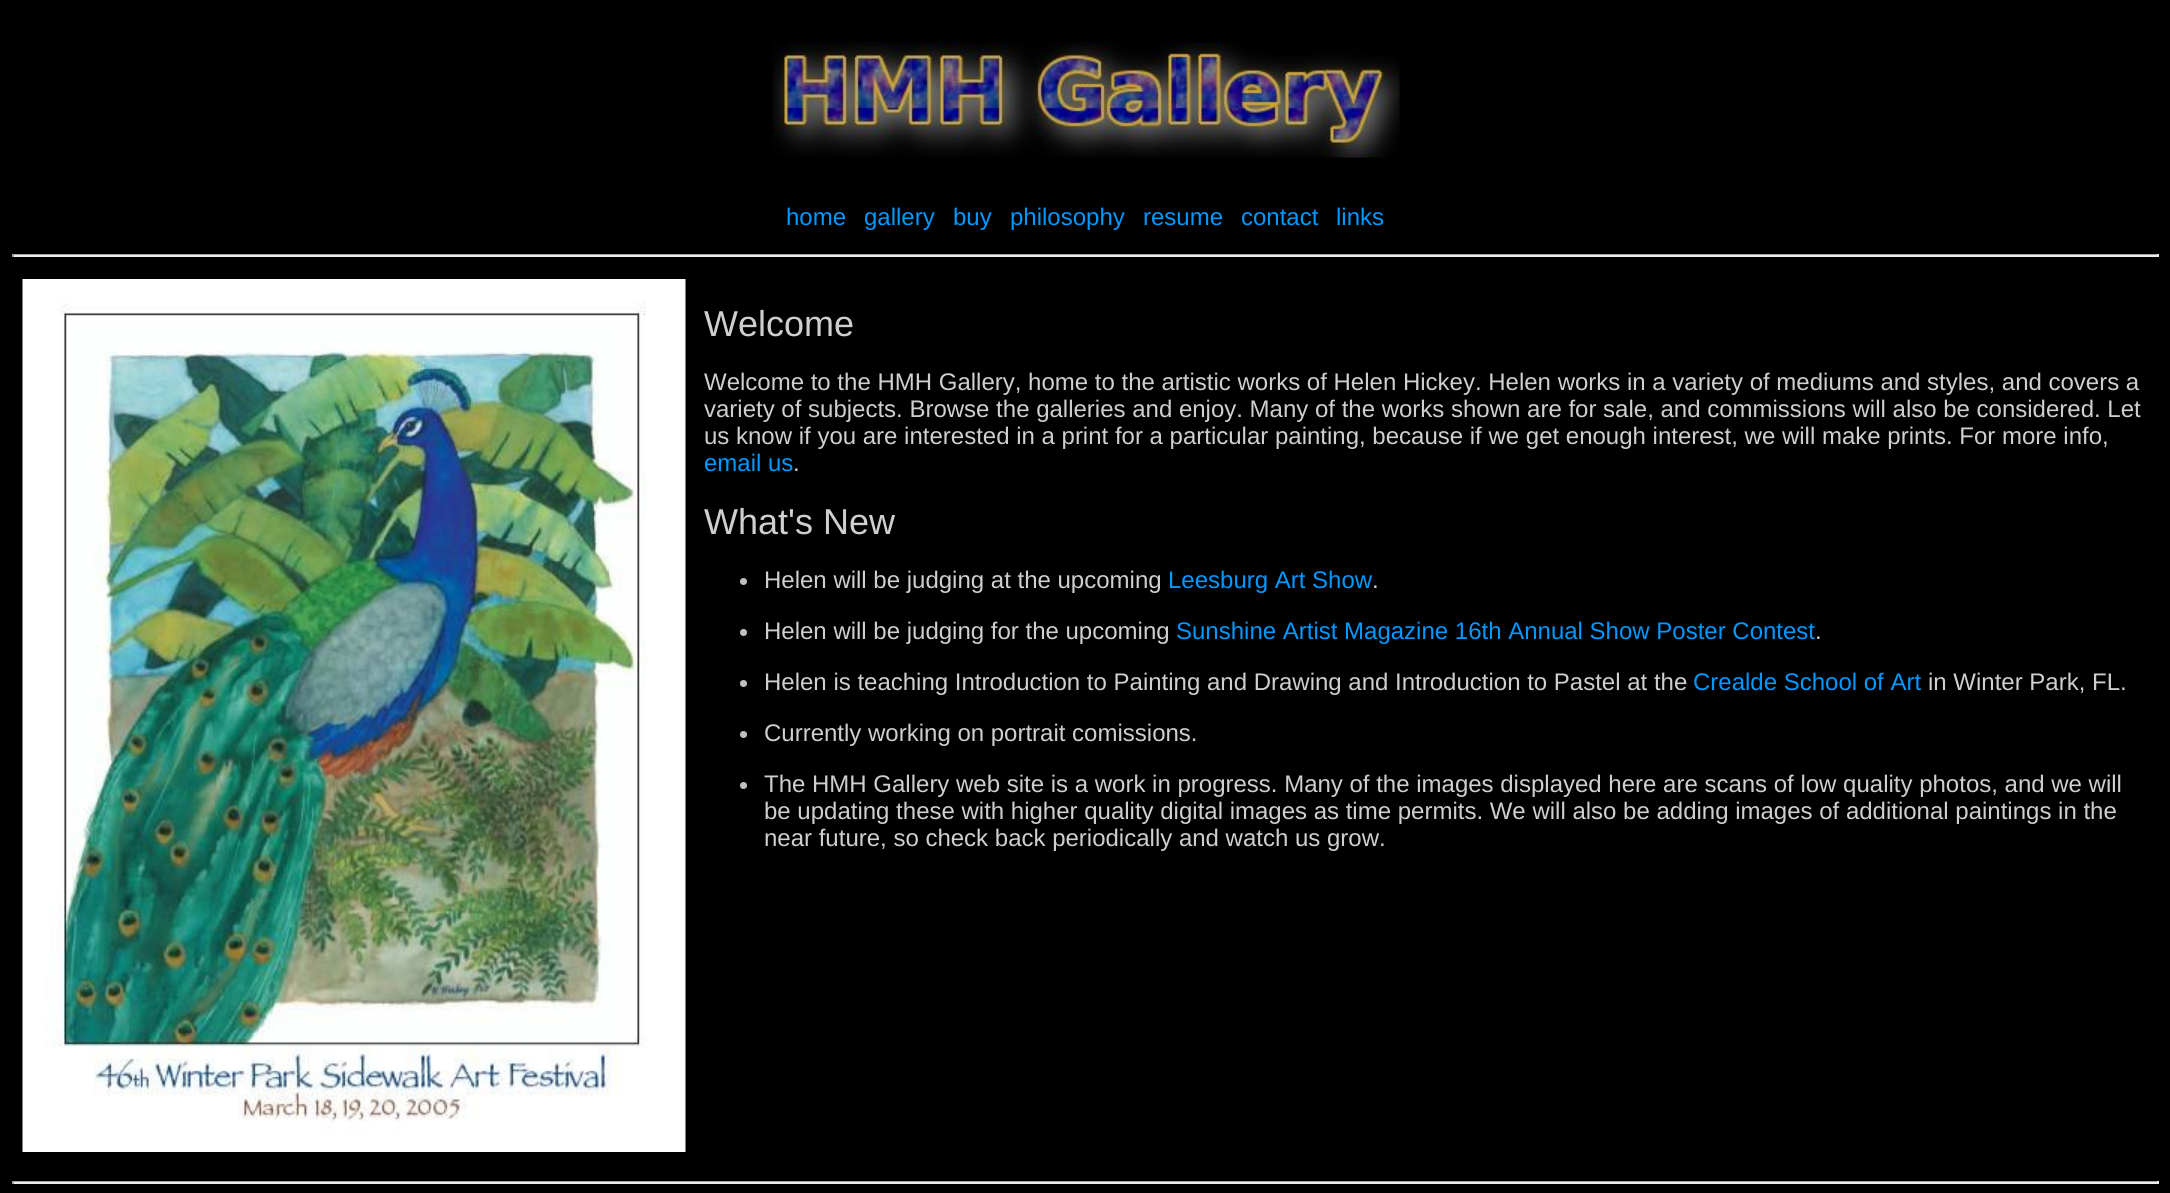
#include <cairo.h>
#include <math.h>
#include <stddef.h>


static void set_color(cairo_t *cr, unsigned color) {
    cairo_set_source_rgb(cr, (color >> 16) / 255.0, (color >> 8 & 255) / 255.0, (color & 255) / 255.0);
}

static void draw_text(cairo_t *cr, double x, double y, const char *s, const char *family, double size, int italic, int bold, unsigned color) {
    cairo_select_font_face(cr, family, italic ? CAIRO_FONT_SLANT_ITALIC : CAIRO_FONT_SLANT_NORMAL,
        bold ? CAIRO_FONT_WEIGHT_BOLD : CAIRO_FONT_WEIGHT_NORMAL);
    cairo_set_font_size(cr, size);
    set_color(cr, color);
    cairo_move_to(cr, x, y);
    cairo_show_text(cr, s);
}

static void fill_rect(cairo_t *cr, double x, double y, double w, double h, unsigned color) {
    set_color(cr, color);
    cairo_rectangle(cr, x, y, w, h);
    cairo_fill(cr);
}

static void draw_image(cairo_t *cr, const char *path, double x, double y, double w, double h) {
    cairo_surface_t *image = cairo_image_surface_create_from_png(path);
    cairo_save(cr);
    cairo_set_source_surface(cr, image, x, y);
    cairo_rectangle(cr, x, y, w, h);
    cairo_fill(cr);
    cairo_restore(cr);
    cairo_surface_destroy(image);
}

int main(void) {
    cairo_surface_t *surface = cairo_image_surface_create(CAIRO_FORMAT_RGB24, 2170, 1193);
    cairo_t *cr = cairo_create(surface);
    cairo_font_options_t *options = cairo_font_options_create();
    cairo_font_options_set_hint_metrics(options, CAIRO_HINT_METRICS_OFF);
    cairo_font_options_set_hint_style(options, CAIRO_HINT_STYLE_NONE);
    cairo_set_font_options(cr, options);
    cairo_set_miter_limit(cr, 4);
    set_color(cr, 0x000000);
    cairo_paint(cr);
    draw_image(cr, "assets/img1.png", 772, 42, 628, 116);
    draw_text(cr, 786, 225, "home", "Liberation Sans", 24, 0, 0, 0x0099FF);
    draw_text(cr, 864, 225, "gallery", "Liberation Sans", 24, 0, 0, 0x0099FF);
    draw_text(cr, 953, 225, "buy", "Liberation Sans", 24, 0, 0, 0x0099FF);
    draw_text(cr, 1010, 225, "philosophy", "Liberation Sans", 24, 0, 0, 0x0099FF);
    draw_text(cr, 1143, 225, "resume", "Liberation Sans", 24, 0, 0, 0x0099FF);
    draw_text(cr, 1241, 225, "contact", "Liberation Sans", 24, 0, 0, 0x0099FF);
    draw_text(cr, 1336, 225, "links", "Liberation Sans", 24, 0, 0, 0x0099FF);
    fill_rect(cr, 12, 254, 2147, 1, 0x9F9F9F);
    fill_rect(cr, 2157, 254, 2, 3, 0xEEEEEE);
    fill_rect(cr, 12, 255, 2147, 2, 0xEEEEEE);
    fill_rect(cr, 12, 254, 2, 3, 0x9F9F9F);
    draw_image(cr, "assets/img2.png", 22, 279, 664, 873);
    draw_text(cr, 704, 336, "Welcome", "Liberation Sans", 36, 0, 0, 0xCFCFCF);
    draw_text(cr, 704, 390, "Welcome to the HMH Gallery, home to the artistic works of Helen Hickey. Helen works in a variety of mediums and styles, and covers a", "Liberation Sans", 24, 0, 0, 0xCFCFCF);
    draw_text(cr, 704, 417, "variety of subjects. Browse the galleries and enjoy. Many of the works shown are for sale, and commissions will also be considered. Let", "Liberation Sans", 24, 0, 0, 0xCFCFCF);
    draw_text(cr, 704, 444, "us know if you are interested in a print for a particular painting, because if we get enough interest, we will make prints. For more info,", "Liberation Sans", 24, 0, 0, 0xCFCFCF);
    draw_text(cr, 704, 471, "email us", "Liberation Sans", 24, 0, 0, 0x0099FF);
    draw_text(cr, 793, 471, ".", "Liberation Sans", 24, 0, 0, 0xCFCFCF);
    draw_text(cr, 704, 534, "What's New", "Liberation Sans", 36, 0, 0, 0xCFCFCF);
    set_color(cr, 0xC0C0C0);
    cairo_new_path(cr);
    cairo_arc(cr, 743.5, 581.5, 3.5, 0, 2 * M_PI);
    cairo_fill(cr);
    draw_text(cr, 764, 588, "Helen will be judging at the upcoming", "Liberation Sans", 24, 0, 0, 0xCFCFCF);
    draw_text(cr, 1168, 588, "Leesburg Art Show", "Liberation Sans", 24, 0, 0, 0x0099FF);
    draw_text(cr, 1372, 588, ".", "Liberation Sans", 24, 0, 0, 0xCFCFCF);
    set_color(cr, 0xC0C0C0);
    cairo_new_path(cr);
    cairo_arc(cr, 743.5, 632.5, 3.5, 0, 2 * M_PI);
    cairo_fill(cr);
    draw_text(cr, 764, 639, "Helen will be judging for the upcoming", "Liberation Sans", 24, 0, 0, 0xCFCFCF);
    draw_text(cr, 1176, 639, "Sunshine Artist Magazine 16th Annual Show Poster Contest", "Liberation Sans", 24, 0, 0, 0x0099FF);
    draw_text(cr, 1815, 639, ".", "Liberation Sans", 24, 0, 0, 0xCFCFCF);
    set_color(cr, 0xC0C0C0);
    cairo_new_path(cr);
    cairo_arc(cr, 743.5, 683.5, 3.5, 0, 2 * M_PI);
    cairo_fill(cr);
    draw_text(cr, 764, 690, "Helen is teaching Introduction to Painting and Drawing and Introduction to Pastel at the", "Liberation Sans", 24, 0, 0, 0xCFCFCF);
    draw_text(cr, 1693, 690, "Crealde School of Art", "Liberation Sans", 24, 0, 0, 0x0099FF);
    draw_text(cr, 1928, 690, "in Winter Park, FL.", "Liberation Sans", 24, 0, 0, 0xCFCFCF);
    set_color(cr, 0xC0C0C0);
    cairo_new_path(cr);
    cairo_arc(cr, 743.5, 734.5, 3.5, 0, 2 * M_PI);
    cairo_fill(cr);
    draw_text(cr, 764, 741, "Currently working on portrait comissions.", "Liberation Sans", 24, 0, 0, 0xCFCFCF);
    set_color(cr, 0xC0C0C0);
    cairo_new_path(cr);
    cairo_arc(cr, 743.5, 785.5, 3.5, 0, 2 * M_PI);
    cairo_fill(cr);
    draw_text(cr, 764, 792, "The HMH Gallery web site is a work in progress. Many of the images displayed here are scans of low quality photos, and we will", "Liberation Sans", 24, 0, 0, 0xCFCFCF);
    draw_text(cr, 764, 819, "be updating these with higher quality digital images as time permits. We will also be adding images of additional paintings in the", "Liberation Sans", 24, 0, 0, 0xCFCFCF);
    draw_text(cr, 764, 846, "near future, so check back periodically and watch us grow.", "Liberation Sans", 24, 0, 0, 0xCFCFCF);
    fill_rect(cr, 12, 1181, 2147, 1, 0x9F9F9F);
    fill_rect(cr, 2157, 1181, 2, 3, 0xEEEEEE);
    fill_rect(cr, 12, 1182, 2147, 2, 0xEEEEEE);
    fill_rect(cr, 12, 1181, 2, 3, 0x9F9F9F);
    cairo_surface_write_to_png(surface, "output.png");
    cairo_font_options_destroy(options);
    cairo_destroy(cr);
    cairo_surface_destroy(surface);
    return 0;
}
